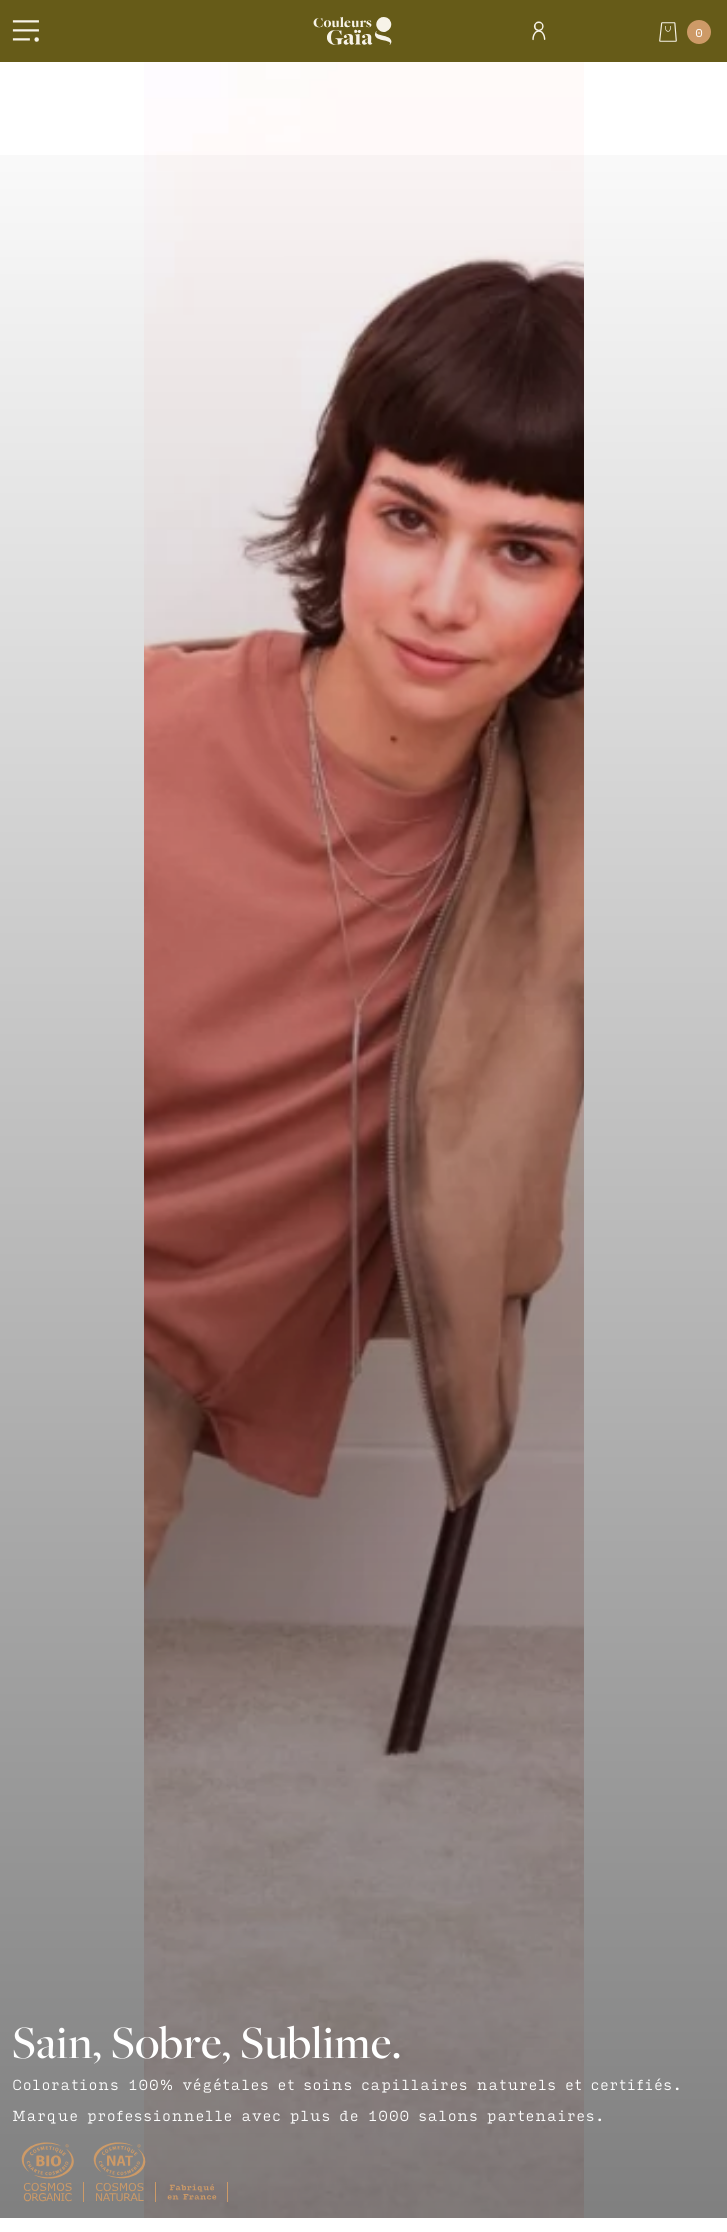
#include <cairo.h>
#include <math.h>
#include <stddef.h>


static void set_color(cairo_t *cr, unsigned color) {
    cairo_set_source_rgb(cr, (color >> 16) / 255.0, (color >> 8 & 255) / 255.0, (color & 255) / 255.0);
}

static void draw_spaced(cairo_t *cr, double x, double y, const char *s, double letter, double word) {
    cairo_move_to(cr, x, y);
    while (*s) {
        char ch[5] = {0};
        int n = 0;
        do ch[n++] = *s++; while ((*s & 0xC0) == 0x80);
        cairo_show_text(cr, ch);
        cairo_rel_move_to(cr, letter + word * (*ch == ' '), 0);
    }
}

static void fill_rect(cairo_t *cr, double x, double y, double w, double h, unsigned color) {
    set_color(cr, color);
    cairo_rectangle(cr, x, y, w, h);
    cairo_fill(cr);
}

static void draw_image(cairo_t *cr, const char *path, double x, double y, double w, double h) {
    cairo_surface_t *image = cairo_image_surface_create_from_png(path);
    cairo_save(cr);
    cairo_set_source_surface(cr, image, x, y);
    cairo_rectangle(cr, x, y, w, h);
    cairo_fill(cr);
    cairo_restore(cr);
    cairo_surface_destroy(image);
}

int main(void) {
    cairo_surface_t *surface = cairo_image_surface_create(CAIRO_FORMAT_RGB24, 727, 2232);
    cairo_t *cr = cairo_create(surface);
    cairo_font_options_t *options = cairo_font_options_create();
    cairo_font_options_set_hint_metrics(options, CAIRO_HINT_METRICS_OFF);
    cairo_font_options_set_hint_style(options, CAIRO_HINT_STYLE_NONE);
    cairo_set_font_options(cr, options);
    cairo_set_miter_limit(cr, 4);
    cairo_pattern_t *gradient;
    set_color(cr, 0xFFFFFF);
    cairo_paint(cr);
    fill_rect(cr, 0, 0, 727, 62, 0x665B18);
    draw_image(cr, "assets/img1.png", 12, 20, 27, 22);
    draw_image(cr, "assets/img2.png", 313, 17, 60, 28);
    draw_image(cr, "assets/img3.png", 374, 17, 18, 28);
    draw_image(cr, "assets/img4.png", 532, 21, 14, 20);
    draw_image(cr, "assets/img5.png", 659, 22, 18, 20);
    set_color(cr, 0xCD9A67);
    cairo_arc(cr, 699, 32, 12, 0, 2 * M_PI);
    cairo_fill(cr);
    cairo_select_font_face(cr, "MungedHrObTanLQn", CAIRO_FONT_SLANT_NORMAL, CAIRO_FONT_WEIGHT_NORMAL);
    cairo_set_font_size(cr, 11);
    set_color(cr, 0xFFFFFF);
    draw_spaced(cr, 695, 37, "0", 0.5, 0);
    draw_image(cr, "assets/img6.png", 144, 62, 440, 2156);
    gradient = cairo_pattern_create_linear(363, 62, 364, 2218);
    cairo_pattern_add_color_stop_rgba(gradient, 0, 0, 0, 0, 0);
    cairo_pattern_add_color_stop_rgba(gradient, 1, 0, 0, 0, 0.5);
    cairo_set_source(cr, gradient);
    cairo_pattern_destroy(gradient);
    cairo_rectangle(cr, 0, 155, 727, 2063);
    cairo_fill(cr);
    cairo_select_font_face(cr, "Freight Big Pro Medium", CAIRO_FONT_SLANT_NORMAL, CAIRO_FONT_WEIGHT_NORMAL);
    cairo_set_font_size(cr, 48);
    set_color(cr, 0xFFFFFF);
    draw_spaced(cr, 12, 2058, "Sain, Sobre, Sublime.", 0.5, 0);
    cairo_select_font_face(cr, "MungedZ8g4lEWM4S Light", CAIRO_FONT_SLANT_NORMAL, CAIRO_FONT_WEIGHT_NORMAL);
    cairo_set_font_size(cr, 14);
    draw_spaced(cr, 12, 2090, "Colorations 100% végétales et soins capillaires naturels et certifiés.", 0.5, 0);
    draw_spaced(cr, 12, 2121, "Marque professionnelle avec plus de 1000 salons partenaires.", 0.5, 0);
    draw_image(cr, "assets/img7.png", 21, 2142, 53, 60);
    fill_rect(cr, 83, 2182, 1, 20, 0xCD9A67);
    draw_image(cr, "assets/img8.png", 93, 2142, 53, 60);
    fill_rect(cr, 155, 2182, 1, 20, 0xCD9A67);
    draw_image(cr, "assets/img9.png", 167, 2184, 50, 16);
    fill_rect(cr, 227, 2182, 1, 20, 0xCD9A67);
    cairo_surface_write_to_png(surface, "output.png");
    cairo_font_options_destroy(options);
    cairo_destroy(cr);
    cairo_surface_destroy(surface);
    return 0;
}
